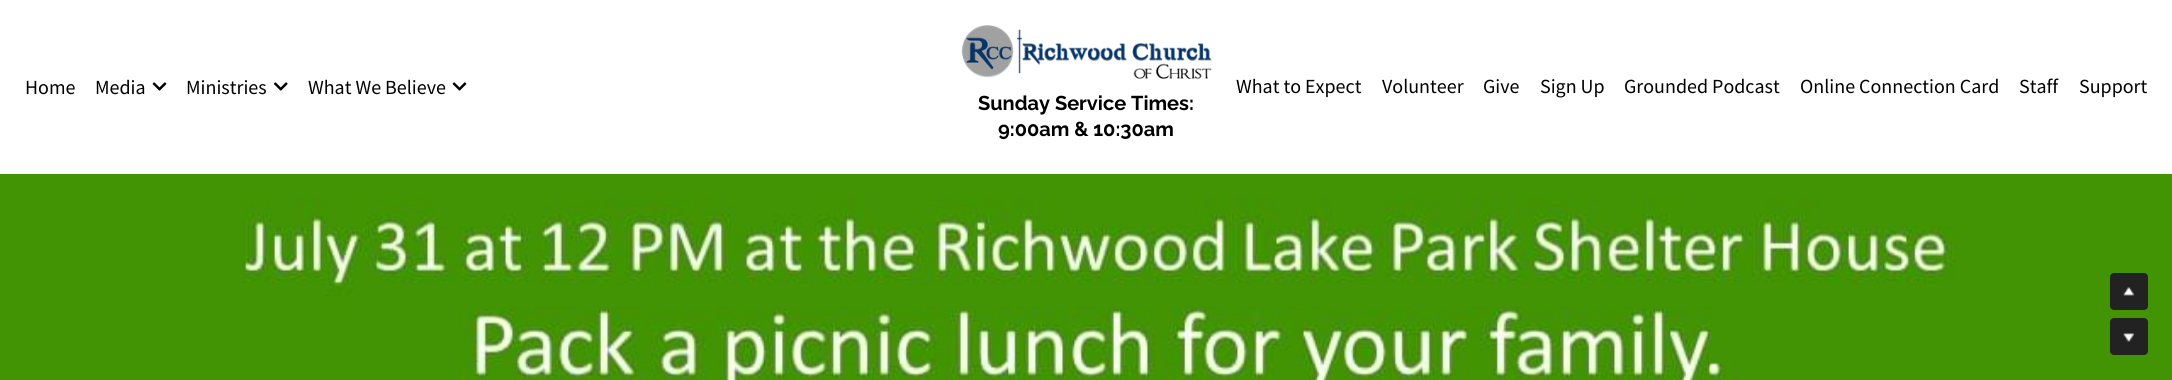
#include <cairo.h>
#include <math.h>
#include <stddef.h>


static void set_color(cairo_t *cr, unsigned color) {
    cairo_set_source_rgb(cr, (color >> 16) / 255.0, (color >> 8 & 255) / 255.0, (color & 255) / 255.0);
}

static void draw_text(cairo_t *cr, double x, double y, const char *s, const char *family, double size, int italic, int bold, unsigned color) {
    cairo_select_font_face(cr, family, italic ? CAIRO_FONT_SLANT_ITALIC : CAIRO_FONT_SLANT_NORMAL,
        bold ? CAIRO_FONT_WEIGHT_BOLD : CAIRO_FONT_WEIGHT_NORMAL);
    cairo_set_font_size(cr, size);
    set_color(cr, color);
    cairo_move_to(cr, x, y);
    cairo_show_text(cr, s);
}

static void rounded_rect(cairo_t *cr, double x, double y, double w, double h, double r) {
    cairo_new_sub_path(cr);
    cairo_arc(cr, x + w - r, y + h - r, r, 0, M_PI / 2);
    cairo_arc(cr, x + r, y + h - r, r, M_PI / 2, M_PI);
    cairo_arc(cr, x + r, y + r, r, M_PI, 1.5 * M_PI);
    cairo_arc(cr, x + w - r, y + r, r, 1.5 * M_PI, 2 * M_PI);
    cairo_close_path(cr);
}

static void draw_image(cairo_t *cr, const char *path, double x, double y, double w, double h) {
    cairo_surface_t *image = cairo_image_surface_create_from_png(path);
    cairo_save(cr);
    cairo_set_source_surface(cr, image, x, y);
    cairo_rectangle(cr, x, y, w, h);
    cairo_fill(cr);
    cairo_restore(cr);
    cairo_surface_destroy(image);
}

int main(void) {
    cairo_surface_t *surface = cairo_image_surface_create(CAIRO_FORMAT_RGB24, 2172, 380);
    cairo_t *cr = cairo_create(surface);
    cairo_font_options_t *options = cairo_font_options_create();
    cairo_font_options_set_hint_metrics(options, CAIRO_HINT_METRICS_OFF);
    cairo_font_options_set_hint_style(options, CAIRO_HINT_STYLE_NONE);
    cairo_set_font_options(cr, options);
    cairo_set_miter_limit(cr, 4);
    set_color(cr, 0xFFFFFF);
    cairo_paint(cr);
    draw_text(cr, 25, 94, "Home", "Source Sans Pro", 20, 0, 0, 0x000000);
    draw_text(cr, 95, 94, "Media", "Source Sans Pro", 20, 0, 0, 0x000000);
    draw_image(cr, "assets/img1.png", 152, 82, 15, 9);
    draw_text(cr, 186, 94, "Ministries", "Source Sans Pro", 20, 0, 0, 0x000000);
    draw_image(cr, "assets/img2.png", 274, 82, 14, 9);
    draw_text(cr, 308, 94, "What We Believe", "Source Sans Pro", 20, 0, 0, 0x000000);
    draw_image(cr, "assets/img1.png", 452, 82, 15, 9);
    draw_text(cr, 1236, 93, "What to Expect", "Source Sans Pro", 20, 0, 0, 0x000000);
    draw_text(cr, 1382, 93, "Volunteer", "Source Sans Pro", 20, 0, 0, 0x000000);
    draw_text(cr, 1483, 93, "Give", "Source Sans Pro", 20, 0, 0, 0x000000);
    draw_text(cr, 1540, 93, "Sign Up", "Source Sans Pro", 20, 0, 0, 0x000000);
    draw_text(cr, 1624, 93, "Grounded Podcast", "Source Sans Pro", 20, 0, 0, 0x000000);
    draw_text(cr, 1800, 93, "Online Connection Card", "Source Sans Pro", 20, 0, 0, 0x000000);
    draw_text(cr, 2019, 93, "Staff", "Source Sans Pro", 20, 0, 0, 0x000000);
    draw_text(cr, 2079, 93, "Support", "Source Sans Pro", 20, 0, 0, 0x000000);
    draw_image(cr, "assets/img3.png", 961, 25, 251, 54);
    draw_text(cr, 978, 110, "Sunday Service Times:", "Raleway", 20, 0, 1, 0x000000);
    draw_text(cr, 998, 136, "9:00am & 10:30am", "Raleway", 20, 0, 1, 0x000000);
    draw_image(cr, "assets/img4.png", 0, 174, 2172, 206);
    set_color(cr, 0x222222);
    rounded_rect(cr, 2110, 273, 38, 37, 4);
    cairo_fill(cr);
    draw_image(cr, "assets/img5.png", 2123, 287, 11, 9);
    rounded_rect(cr, 2110, 318, 38, 37, 4);
    cairo_fill(cr);
    draw_image(cr, "assets/img6.png", 2123, 333, 11, 9);
    cairo_surface_write_to_png(surface, "output.png");
    cairo_font_options_destroy(options);
    cairo_destroy(cr);
    cairo_surface_destroy(surface);
    return 0;
}
